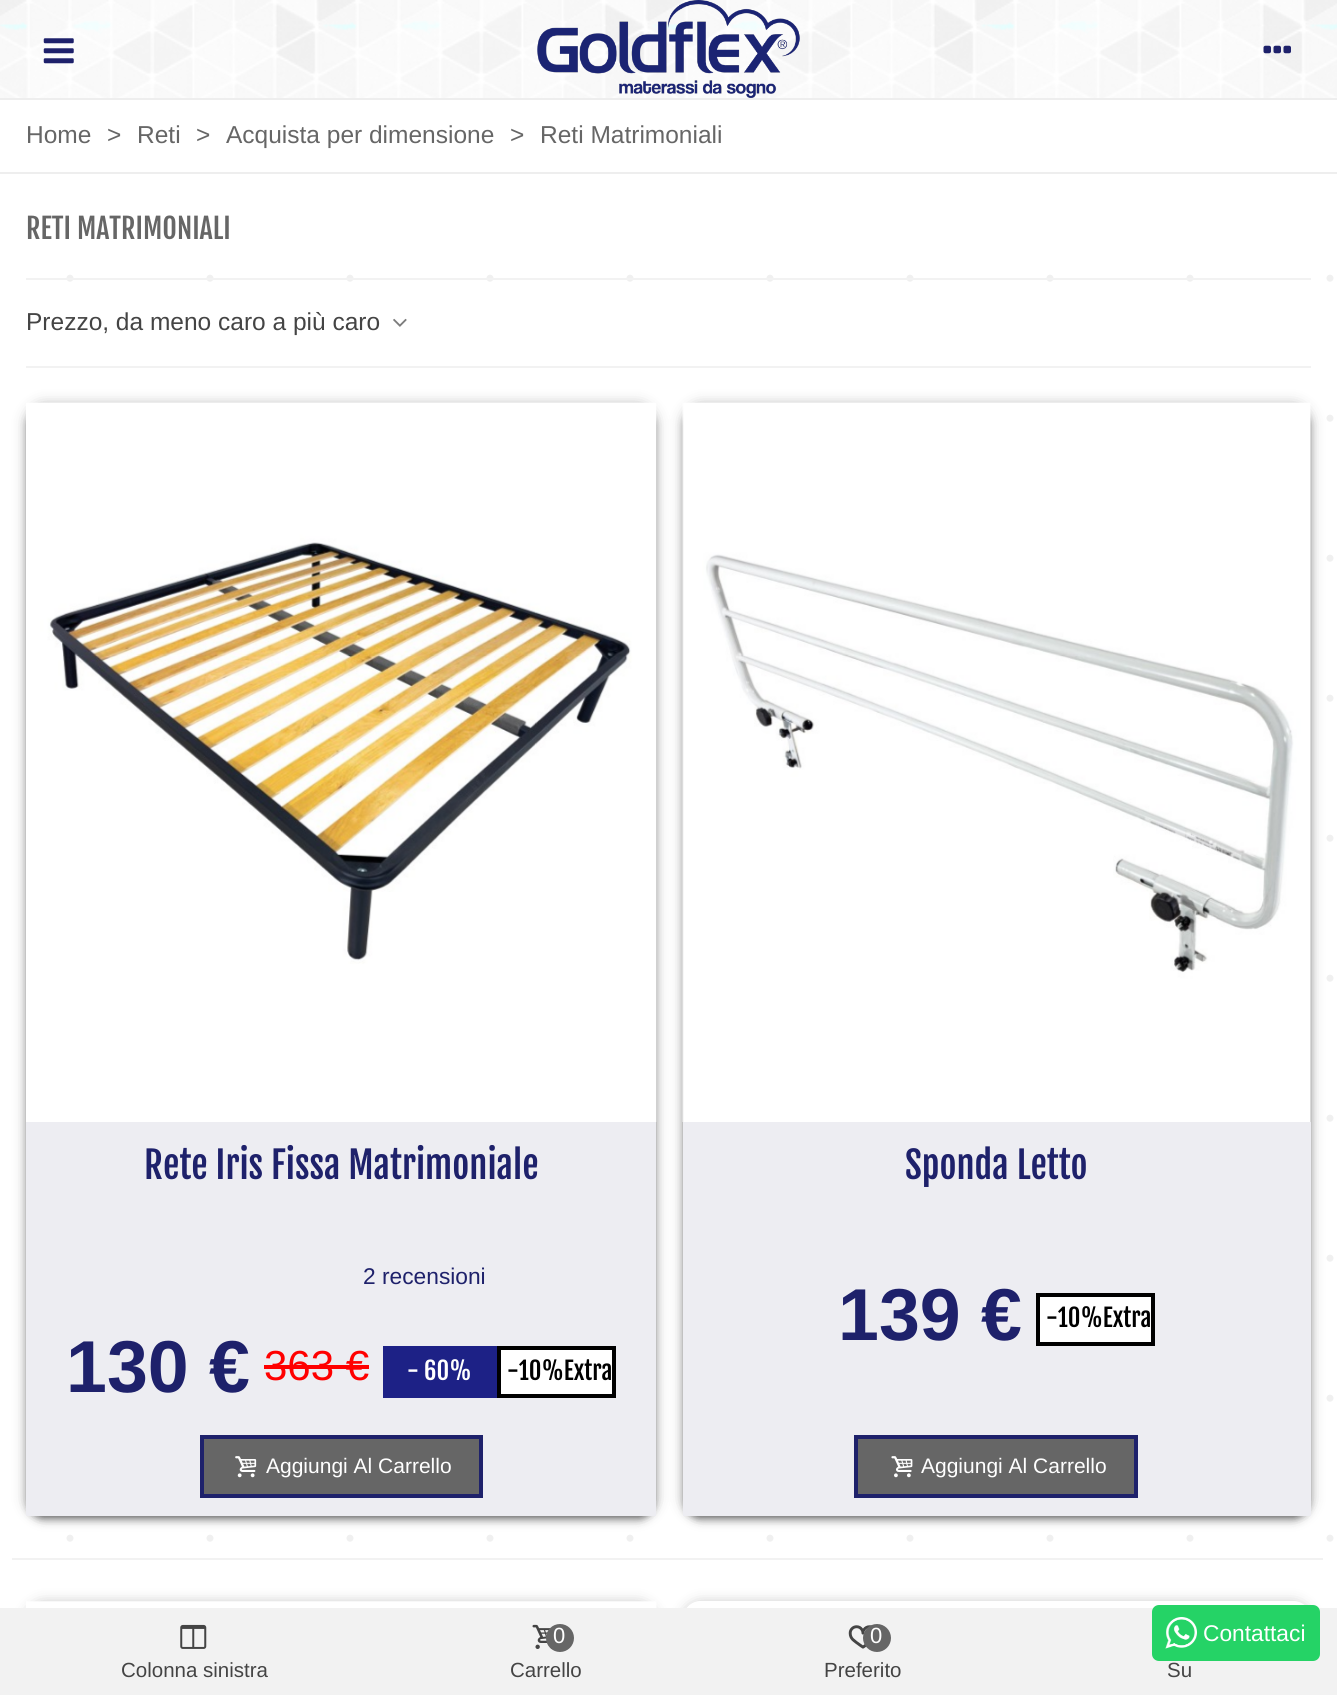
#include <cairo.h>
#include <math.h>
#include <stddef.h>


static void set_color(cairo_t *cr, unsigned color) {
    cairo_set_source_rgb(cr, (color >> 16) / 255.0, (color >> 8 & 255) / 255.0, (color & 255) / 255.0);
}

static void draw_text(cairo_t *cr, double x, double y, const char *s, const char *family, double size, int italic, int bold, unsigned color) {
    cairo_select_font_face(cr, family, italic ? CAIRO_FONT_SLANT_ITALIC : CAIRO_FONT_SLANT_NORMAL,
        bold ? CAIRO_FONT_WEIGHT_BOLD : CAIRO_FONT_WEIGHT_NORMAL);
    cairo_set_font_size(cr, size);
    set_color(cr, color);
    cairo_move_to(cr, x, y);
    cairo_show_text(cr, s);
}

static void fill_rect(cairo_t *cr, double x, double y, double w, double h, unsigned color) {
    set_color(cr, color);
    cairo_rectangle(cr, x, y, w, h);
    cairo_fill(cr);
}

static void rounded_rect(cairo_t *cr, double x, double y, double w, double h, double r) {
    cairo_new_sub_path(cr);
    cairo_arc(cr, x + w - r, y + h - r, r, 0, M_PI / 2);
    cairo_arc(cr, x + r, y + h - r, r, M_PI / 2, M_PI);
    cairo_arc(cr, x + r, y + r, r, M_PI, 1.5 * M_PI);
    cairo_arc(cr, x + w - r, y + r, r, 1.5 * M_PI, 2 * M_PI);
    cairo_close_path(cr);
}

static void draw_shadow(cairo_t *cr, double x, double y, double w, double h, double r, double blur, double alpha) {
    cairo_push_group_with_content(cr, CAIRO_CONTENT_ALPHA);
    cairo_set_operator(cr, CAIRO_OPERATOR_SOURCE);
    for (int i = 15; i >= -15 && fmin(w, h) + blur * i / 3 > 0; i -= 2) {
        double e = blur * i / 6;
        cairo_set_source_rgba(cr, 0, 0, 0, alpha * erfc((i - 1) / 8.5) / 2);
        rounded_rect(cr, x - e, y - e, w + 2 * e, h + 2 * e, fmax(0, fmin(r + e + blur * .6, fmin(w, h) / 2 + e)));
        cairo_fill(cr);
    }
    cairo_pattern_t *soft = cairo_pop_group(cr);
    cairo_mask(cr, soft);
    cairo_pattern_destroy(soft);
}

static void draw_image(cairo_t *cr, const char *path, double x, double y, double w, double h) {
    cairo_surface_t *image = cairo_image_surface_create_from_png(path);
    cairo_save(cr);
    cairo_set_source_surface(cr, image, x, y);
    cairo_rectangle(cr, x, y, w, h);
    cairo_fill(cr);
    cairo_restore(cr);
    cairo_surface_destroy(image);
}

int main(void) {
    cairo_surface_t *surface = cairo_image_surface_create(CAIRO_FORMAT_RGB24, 1337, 1695);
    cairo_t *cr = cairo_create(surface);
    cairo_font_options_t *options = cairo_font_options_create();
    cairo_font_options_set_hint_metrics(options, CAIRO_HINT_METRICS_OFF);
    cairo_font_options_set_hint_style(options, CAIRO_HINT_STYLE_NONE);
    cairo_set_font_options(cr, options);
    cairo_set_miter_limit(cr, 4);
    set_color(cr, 0xFFFFFF);
    cairo_paint(cr);
    draw_image(cr, "assets/img1.png", 0, 0, 1337, 98);
    draw_image(cr, "assets/img2.png", 43, 38, 31, 26);
    draw_image(cr, "assets/img3.png", 537, 0, 263, 98);
    draw_image(cr, "assets/img4.png", 1263, 45, 28, 9);
    fill_rect(cr, 0, 98, 1337, 2, 0xEEEEEE);
    fill_rect(cr, 0, 172, 1337, 2, 0xEEEEEE);
    draw_text(cr, 26, 143, "Home", "Liberation Sans", 24.5, 0, 0, 0x666666);
    draw_text(cr, 107, 143, ">", "Liberation Sans", 24.5, 0, 0, 0x666666);
    draw_text(cr, 137, 143, "Reti", "Liberation Sans", 24.5, 0, 0, 0x666666);
    draw_text(cr, 196, 143, ">", "Liberation Sans", 24.5, 0, 0, 0x666666);
    draw_text(cr, 226, 143, "Acquista per dimensione", "Liberation Sans", 24.5, 0, 0, 0x666666);
    draw_text(cr, 510, 143, ">", "Liberation Sans", 24.5, 0, 0, 0x666666);
    draw_text(cr, 540, 143, "Reti Matrimoniali", "Liberation Sans", 24.5, 0, 0, 0x666666);
    cairo_new_path(cr);
    cairo_move_to(cr, 70, 278.2);
    cairo_line_to(cr, 70, 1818.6);
    set_color(cr, 0xF0F0F0);
    cairo_set_line_width(cr, 7);
    cairo_set_line_cap(cr, CAIRO_LINE_CAP_ROUND);
    cairo_set_dash(cr, (double[]){0, 140}, 2, 0);
    cairo_stroke(cr);
    cairo_new_path(cr);
    cairo_move_to(cr, 210, 278.2);
    cairo_line_to(cr, 210, 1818.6);
    cairo_stroke(cr);
    cairo_new_path(cr);
    cairo_move_to(cr, 350, 278.2);
    cairo_line_to(cr, 350, 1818.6);
    cairo_stroke(cr);
    cairo_new_path(cr);
    cairo_move_to(cr, 490, 278.2);
    cairo_line_to(cr, 490, 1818.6);
    cairo_stroke(cr);
    cairo_new_path(cr);
    cairo_move_to(cr, 630, 278.2);
    cairo_line_to(cr, 630, 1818.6);
    cairo_stroke(cr);
    cairo_new_path(cr);
    cairo_move_to(cr, 770, 278.2);
    cairo_line_to(cr, 770, 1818.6);
    cairo_stroke(cr);
    cairo_new_path(cr);
    cairo_move_to(cr, 910, 278.2);
    cairo_line_to(cr, 910, 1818.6);
    cairo_stroke(cr);
    cairo_new_path(cr);
    cairo_move_to(cr, 1050, 278.2);
    cairo_line_to(cr, 1050, 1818.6);
    cairo_stroke(cr);
    cairo_new_path(cr);
    cairo_move_to(cr, 1190, 278.2);
    cairo_line_to(cr, 1190, 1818.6);
    cairo_stroke(cr);
    cairo_new_path(cr);
    cairo_move_to(cr, 1330, 278.2);
    cairo_line_to(cr, 1330, 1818.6);
    cairo_stroke(cr);
    draw_text(cr, 26, 239, "RETI MATRIMONIALI", "Fjalla One", 28, 0, 0, 0x666666);
    fill_rect(cr, 26, 278, 1285, 2, 0xF2F2F2);
    fill_rect(cr, 26, 366, 1285, 2, 0xF2F2F2);
    draw_text(cr, 26, 330, "Prezzo, da meno caro a più caro", "Liberation Sans", 24.5, 0, 0, 0x444444);
    draw_image(cr, "assets/img5.png", 393, 318, 14, 9);
    set_color(cr, 0x000000);
    draw_shadow(cr, 26, 404, 630, 1113, 18, 7, 0.25);
    draw_shadow(cr, 26, 408, 630, 1113, 18, 3.5, 0.25);
    draw_shadow(cr, 30, 411, 623, 1106, 14, 2.5, 0.3);
    draw_image(cr, "assets/img6.png", 26, 402, 631, 720);
    fill_rect(cr, 26, 1122, 630, 394, 0xEDEDF2);
    draw_text(cr, 144, 1179, "Rete Iris Fissa Matrimoniale", "Fjalla One", 36.75, 0, 0, 0x1E216B);
    draw_text(cr, 363, 1284, "2 recensioni", "Liberation Sans", 22.75, 0, 0, 0x1E216B);
    draw_text(cr, 66, 1392, "130 €", "Liberation Sans", 73.5, 0, 1, 0x1E216B);
    draw_text(cr, 264, 1380, "363 €", "Liberation Sans", 42, 0, 0, 0xFF0000);
    fill_rect(cr, 264, 1365, 105, 4, 0xFF0000);
    fill_rect(cr, 383, 1346, 114, 52, 0x1D2186);
    draw_text(cr, 407, 1380, "- 60%", "Fjalla One", 24.5, 0, 0, 0xFFFFFF);
    cairo_rectangle(cr, 499, 1348, 115, 48);
    cairo_fill_preserve(cr);
    set_color(cr, 0x000000);
    cairo_set_line_width(cr, 4);
    cairo_set_line_cap(cr, CAIRO_LINE_CAP_BUTT);
    cairo_set_dash(cr, NULL, 0, 0);
    cairo_stroke(cr);
    draw_text(cr, 507, 1380, "-10%Extra", "Fjalla One", 24.5, 0, 0, 0x000000);
    set_color(cr, 0x666666);
    cairo_rectangle(cr, 202, 1437, 279, 59);
    cairo_fill_preserve(cr);
    set_color(cr, 0x1E216B);
    cairo_stroke(cr);
    draw_image(cr, "assets/img7.png", 235, 1456, 22, 22);
    draw_text(cr, 266, 1473, "Aggiungi Al Carrello", "Liberation Sans", 21, 0, 0, 0xFFFFFF);
    set_color(cr, 0x000000);
    draw_shadow(cr, 683, 404, 628, 1113, 18, 7, 0.25);
    draw_shadow(cr, 683, 408, 628, 1113, 18, 3.5, 0.25);
    draw_shadow(cr, 686, 411, 621, 1106, 14, 2.5, 0.3);
    draw_image(cr, "assets/img8.png", 682, 402, 629, 720);
    fill_rect(cr, 683, 1122, 628, 394, 0xEDEDF2);
    draw_text(cr, 905, 1179, "Sponda Letto", "Fjalla One", 36.75, 0, 0, 0x1E216B);
    draw_text(cr, 838, 1340, "139 €", "Liberation Sans", 73.5, 0, 1, 0x1E216B);
    set_color(cr, 0xFFFFFF);
    cairo_rectangle(cr, 1038, 1295, 115, 49);
    cairo_fill_preserve(cr);
    set_color(cr, 0x000000);
    cairo_stroke(cr);
    draw_text(cr, 1046, 1327, "-10%Extra", "Fjalla One", 24.5, 0, 0, 0x000000);
    set_color(cr, 0x666666);
    cairo_rectangle(cr, 856, 1437, 280, 59);
    cairo_fill_preserve(cr);
    set_color(cr, 0x1E216B);
    cairo_stroke(cr);
    draw_image(cr, "assets/img9.png", 891, 1456, 22, 22);
    draw_text(cr, 921, 1473, "Aggiungi Al Carrello", "Liberation Sans", 21, 0, 0, 0xFFFFFF);
    fill_rect(cr, 12, 1558, 1311, 2, 0xF2F2F2);
    set_color(cr, 0x000000);
    draw_shadow(cr, 26, 1603, 630, 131, 18, 7, 0.25);
    draw_image(cr, "assets/img10.png", 26, 1601, 631, 7);
    cairo_save(cr);
    cairo_set_fill_rule(cr, CAIRO_FILL_RULE_EVEN_ODD);
    cairo_new_path(cr);
    cairo_move_to(cr, 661, 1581);
    cairo_line_to(cr, 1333, 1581);
    cairo_line_to(cr, 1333, 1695);
    cairo_line_to(cr, 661, 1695);
    cairo_close_path(cr);
    cairo_move_to(cr, 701, 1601);
    cairo_line_to(cr, 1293, 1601);
    cairo_curve_to(cr, 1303, 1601, 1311, 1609, 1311, 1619);
    cairo_line_to(cr, 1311, 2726);
    cairo_curve_to(cr, 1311, 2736, 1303, 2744, 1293, 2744);
    cairo_line_to(cr, 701, 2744);
    cairo_curve_to(cr, 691, 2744, 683, 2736, 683, 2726);
    cairo_line_to(cr, 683, 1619);
    cairo_curve_to(cr, 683, 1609, 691, 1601, 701, 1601);
    cairo_close_path(cr);
    cairo_clip(cr);
    draw_shadow(cr, 683, 1603, 628, 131, 18, 7, 0.25);
    cairo_restore(cr);
    fill_rect(cr, 0, 1608, 1337, 87, 0xF2F2F2);
    draw_image(cr, "assets/img11.png", 180, 1624, 27, 25);
    draw_text(cr, 121, 1677, "Colonna sinistra", "Liberation Sans", 20.5, 0, 0, 0x444444);
    draw_image(cr, "assets/img12.png", 532, 1624, 20, 25);
    set_color(cr, 0x666666);
    cairo_arc(cr, 560, 1638, 14, 0, 2 * M_PI);
    cairo_fill(cr);
    draw_text(cr, 553, 1643, "0", "Liberation Sans", 22, 0, 0, 0xFFFFFF);
    draw_text(cr, 510, 1677, "Carrello", "Liberation Sans", 20.5, 0, 0, 0x444444);
    draw_image(cr, "assets/img13.png", 848, 1625, 24, 24);
    set_color(cr, 0x666666);
    cairo_arc(cr, 877, 1638, 14, 0, 2 * M_PI);
    cairo_fill(cr);
    draw_text(cr, 870, 1643, "0", "Liberation Sans", 22, 0, 0, 0xFFFFFF);
    draw_text(cr, 824, 1677, "Preferito", "Liberation Sans", 20.5, 0, 0, 0x444444);
    draw_text(cr, 1167, 1677, "Su", "Liberation Sans", 20.5, 0, 0, 0x444444);
    set_color(cr, 0x25D366);
    rounded_rect(cr, 1152, 1605, 168, 56, 7);
    cairo_fill(cr);
    draw_image(cr, "assets/img14.png", 1165, 1617, 32, 32);
    draw_text(cr, 1203, 1641, "Contattaci", "Liberation Sans", 22.75, 0, 0, 0xFFFFFF);
    cairo_surface_write_to_png(surface, "output.png");
    cairo_font_options_destroy(options);
    cairo_destroy(cr);
    cairo_surface_destroy(surface);
    return 0;
}
